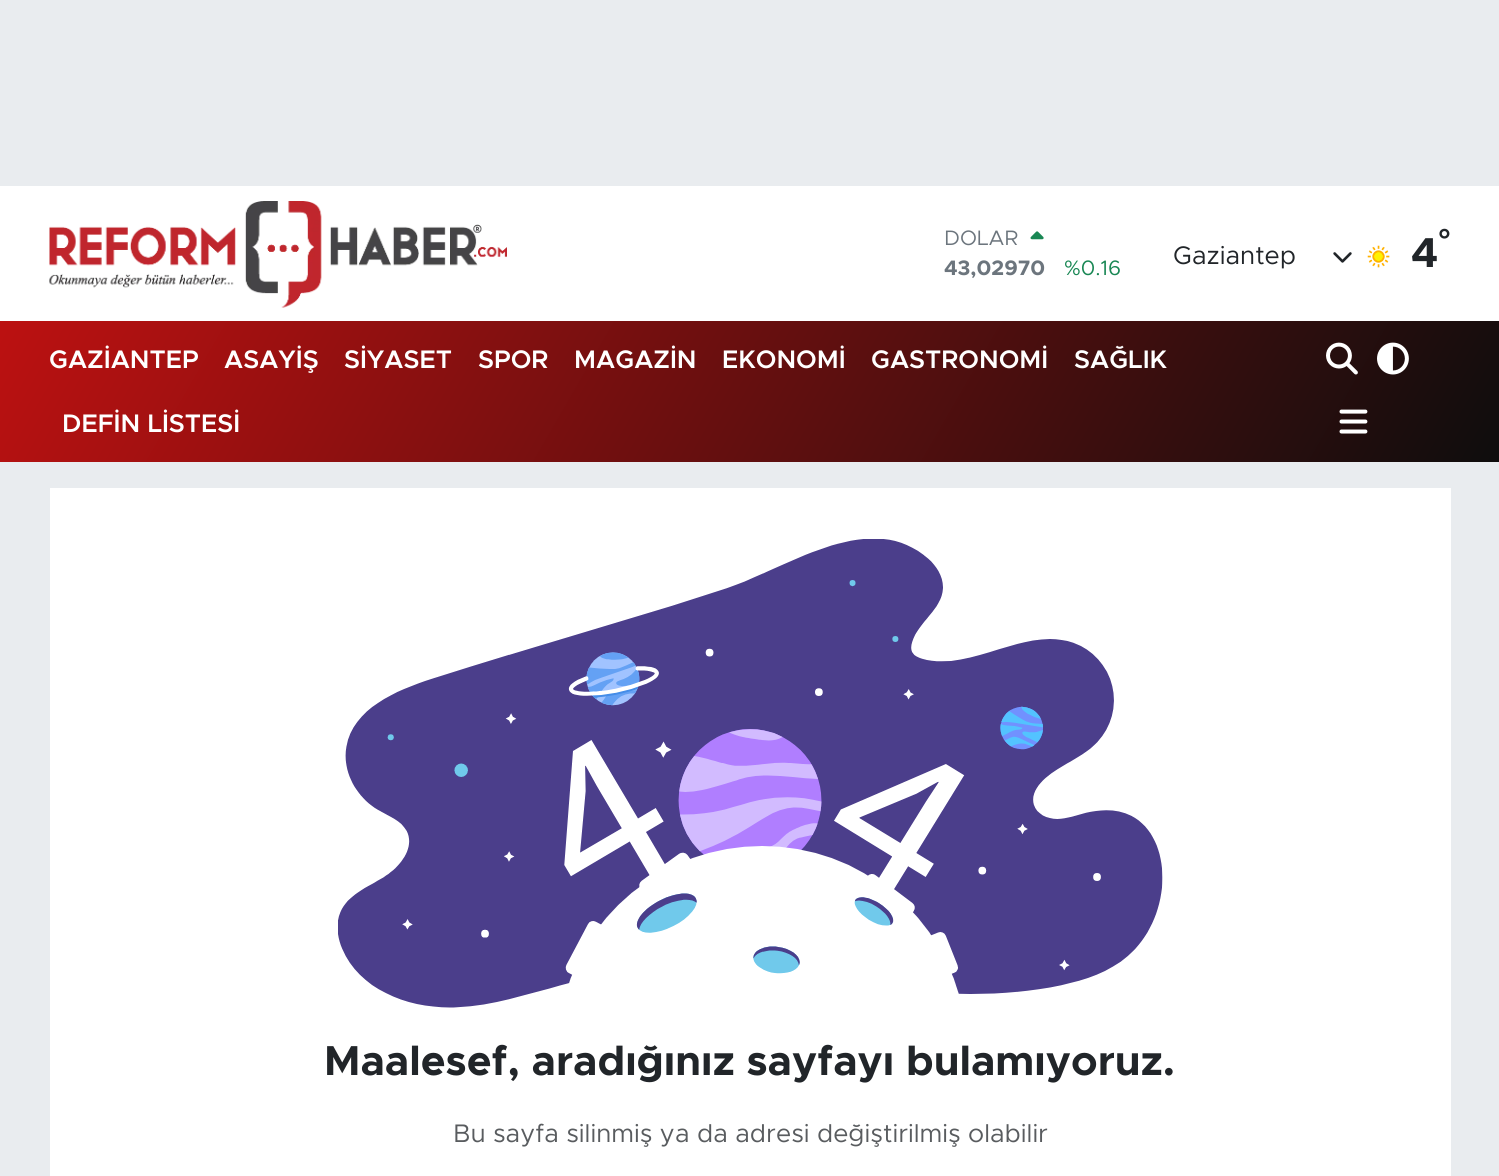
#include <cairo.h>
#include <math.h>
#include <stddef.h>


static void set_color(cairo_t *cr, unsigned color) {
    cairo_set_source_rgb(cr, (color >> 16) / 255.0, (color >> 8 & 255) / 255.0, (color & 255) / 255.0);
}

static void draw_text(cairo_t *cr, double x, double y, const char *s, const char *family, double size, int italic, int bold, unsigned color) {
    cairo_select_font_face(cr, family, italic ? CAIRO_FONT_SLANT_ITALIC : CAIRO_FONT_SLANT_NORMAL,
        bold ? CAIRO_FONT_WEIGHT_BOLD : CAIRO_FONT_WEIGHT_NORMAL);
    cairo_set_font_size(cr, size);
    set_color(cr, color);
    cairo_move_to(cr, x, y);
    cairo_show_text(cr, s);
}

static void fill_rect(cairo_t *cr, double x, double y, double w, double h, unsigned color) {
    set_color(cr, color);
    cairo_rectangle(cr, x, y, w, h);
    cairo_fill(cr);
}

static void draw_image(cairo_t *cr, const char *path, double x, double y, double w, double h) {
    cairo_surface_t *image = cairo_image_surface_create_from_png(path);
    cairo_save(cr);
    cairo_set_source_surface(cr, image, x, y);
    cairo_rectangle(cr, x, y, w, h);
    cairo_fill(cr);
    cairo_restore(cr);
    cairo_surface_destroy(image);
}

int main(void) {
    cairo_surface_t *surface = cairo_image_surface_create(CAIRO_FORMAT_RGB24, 1499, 1176);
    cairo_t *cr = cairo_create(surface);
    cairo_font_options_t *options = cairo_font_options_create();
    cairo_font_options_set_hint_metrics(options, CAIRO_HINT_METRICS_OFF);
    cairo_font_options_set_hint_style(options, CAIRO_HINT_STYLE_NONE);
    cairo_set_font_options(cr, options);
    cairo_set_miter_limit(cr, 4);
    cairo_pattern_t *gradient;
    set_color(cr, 0xE9ECEF);
    cairo_paint(cr);
    fill_rect(cr, 0, 186, 1499, 135, 0xFFFFFF);
    draw_image(cr, "assets/img1.png", 49, 201, 458, 107);
    draw_text(cr, 944, 245, "DOLAR", "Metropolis", 21, 0, 0, 0x6C757D);
    draw_image(cr, "assets/img2.png", 1030, 231, 14, 9);
    draw_text(cr, 944, 275, "43,02970", "Metropolis", 21, 0, 1, 0x6C757D);
    draw_text(cr, 1064, 275, "%0.16", "Metropolis", 21, 0, 0, 0x198754);
    draw_text(cr, 1173, 264, "Gaziantep", "Metropolis", 25.5, 0, 0, 0x212529);
    draw_image(cr, "assets/img3.png", 1333, 252, 19, 11);
    draw_image(cr, "assets/img4.png", 1367, 245, 23, 23);
    draw_text(cr, 1438, 251, "°", "Liberation Sans", 32, 0, 1, 0x212529);
    draw_text(cr, 1411, 267, "4", "Metropolis", 42, 0, 1, 0x212529);
    gradient = cairo_pattern_create_linear(157, 49, 1343, 734);
    cairo_pattern_add_color_stop_rgba(gradient, 0, 0.737, 0.067, 0.067, 1);
    cairo_pattern_add_color_stop_rgba(gradient, 1, 0.055, 0.051, 0.051, 1);
    cairo_set_source(cr, gradient);
    cairo_pattern_destroy(gradient);
    cairo_rectangle(cr, 0, 321, 1499, 141);
    cairo_fill(cr);
    draw_text(cr, 49, 368, "GAZİANTEP", "Metropolis SemiBold", 25.5, 0, 0, 0xFFFFFF);
    draw_text(cr, 224, 368, "ASAYİŞ", "Metropolis SemiBold", 25.5, 0, 0, 0xFFFFFF);
    draw_text(cr, 344, 368, "SİYASET", "Metropolis SemiBold", 25.5, 0, 0, 0xFFFFFF);
    draw_text(cr, 478, 368, "SPOR", "Metropolis SemiBold", 25.5, 0, 0, 0xFFFFFF);
    draw_text(cr, 574, 368, "MAGAZİN", "Metropolis SemiBold", 25.5, 0, 0, 0xFFFFFF);
    draw_text(cr, 722, 368, "EKONOMİ", "Metropolis SemiBold", 25.5, 0, 0, 0xFFFFFF);
    draw_text(cr, 871, 368, "GASTRONOMİ", "Metropolis SemiBold", 25.5, 0, 0, 0xFFFFFF);
    draw_text(cr, 1074, 368, "SAĞLIK", "Metropolis SemiBold", 25.5, 0, 0, 0xFFFFFF);
    draw_text(cr, 62, 432, "DEFİN LİSTESİ", "Metropolis SemiBold", 25.5, 0, 0, 0xFFFFFF);
    draw_image(cr, "assets/img5.png", 1326, 342, 32, 33);
    draw_image(cr, "assets/img6.png", 1377, 342, 32, 33);
    draw_image(cr, "assets/img7.png", 1339, 409, 29, 25);
    fill_rect(cr, 50, 488, 1401, 688, 0xFFFFFF);
    draw_image(cr, "assets/img8.png", 338, 539, 825, 469);
    draw_text(cr, 324, 1075, "Maalesef, aradığınız sayfayı bulamıyoruz.", "Metropolis", 42, 0, 1, 0x212529);
    draw_text(cr, 453, 1142, "Bu sayfa silinmiş ya da adresi değiştirilmiş olabilir", "Metropolis", 25.5, 0, 0, 0x595C5F);
    cairo_surface_write_to_png(surface, "output.png");
    cairo_font_options_destroy(options);
    cairo_destroy(cr);
    cairo_surface_destroy(surface);
    return 0;
}
